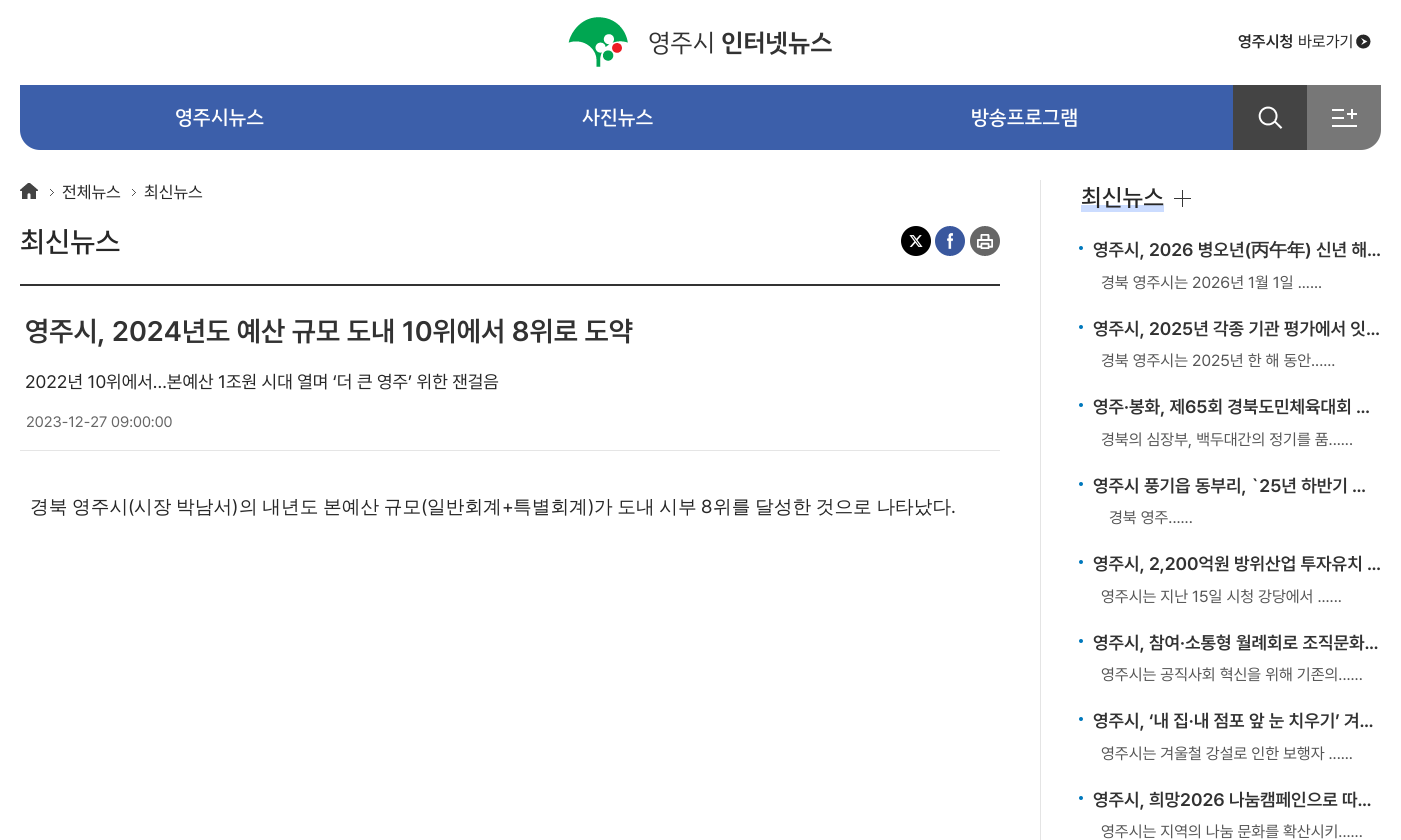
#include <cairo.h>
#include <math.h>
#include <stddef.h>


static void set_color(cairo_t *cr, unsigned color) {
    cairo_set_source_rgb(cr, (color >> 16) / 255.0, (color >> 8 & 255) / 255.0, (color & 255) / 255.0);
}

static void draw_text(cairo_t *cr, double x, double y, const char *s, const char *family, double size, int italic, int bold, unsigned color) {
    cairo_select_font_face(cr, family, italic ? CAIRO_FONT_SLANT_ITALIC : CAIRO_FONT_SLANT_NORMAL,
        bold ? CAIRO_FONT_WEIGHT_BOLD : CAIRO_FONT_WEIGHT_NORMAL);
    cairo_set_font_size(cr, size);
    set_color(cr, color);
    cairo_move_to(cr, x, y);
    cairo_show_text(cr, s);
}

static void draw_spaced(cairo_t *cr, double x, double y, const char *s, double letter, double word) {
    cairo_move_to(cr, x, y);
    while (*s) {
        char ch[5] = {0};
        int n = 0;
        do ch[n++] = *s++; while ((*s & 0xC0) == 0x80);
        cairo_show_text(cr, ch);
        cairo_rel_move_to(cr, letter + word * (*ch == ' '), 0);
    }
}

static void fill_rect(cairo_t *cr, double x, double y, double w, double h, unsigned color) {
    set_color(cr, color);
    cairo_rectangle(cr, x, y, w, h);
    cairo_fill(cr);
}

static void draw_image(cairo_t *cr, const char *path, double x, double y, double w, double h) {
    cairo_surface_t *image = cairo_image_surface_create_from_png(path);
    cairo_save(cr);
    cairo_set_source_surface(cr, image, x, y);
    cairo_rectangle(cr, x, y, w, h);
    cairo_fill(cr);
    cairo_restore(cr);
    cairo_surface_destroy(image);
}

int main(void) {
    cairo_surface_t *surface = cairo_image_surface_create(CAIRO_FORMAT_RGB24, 1401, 840);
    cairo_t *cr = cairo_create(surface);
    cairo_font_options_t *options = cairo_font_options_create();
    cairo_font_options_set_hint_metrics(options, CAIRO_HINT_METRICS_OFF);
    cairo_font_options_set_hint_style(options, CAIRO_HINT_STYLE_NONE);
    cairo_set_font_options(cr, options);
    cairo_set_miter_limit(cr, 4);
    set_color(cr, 0xFFFFFF);
    cairo_paint(cr);
    draw_image(cr, "assets/img1.png", 568, 17, 60, 50);
    draw_text(cr, 648, 51, "영주시", "IBM Plex Sans KR", 25, 0, 0, 0x323232);
    draw_text(cr, 721, 51, "인터넷뉴스", "IBM Plex Sans KR SemiBold", 25, 0, 0, 0x323232);
    draw_text(cr, 1238, 47, "영주시청", "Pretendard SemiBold", 16, 0, 0, 0x272727);
    draw_text(cr, 1298, 47, "바로가기", "Pretendard", 16, 0, 0, 0x272727);
    draw_image(cr, "assets/img2.png", 1356, 34, 15, 15);
    set_color(cr, 0x3C5FAA);
    cairo_new_path(cr);
    cairo_move_to(cr, 20, 85);
    cairo_line_to(cr, 1233, 85);
    cairo_line_to(cr, 1233, 150);
    cairo_line_to(cr, 40, 150);
    cairo_curve_to(cr, 29, 150, 20, 141, 20, 130);
    cairo_close_path(cr);
    cairo_fill(cr);
    draw_text(cr, 175, 124, "영주시뉴스", "IBM Plex Sans KR Medium", 20, 0, 0, 0xFFFFFF);
    draw_text(cr, 582, 124, "사진뉴스", "IBM Plex Sans KR Medium", 20, 0, 0, 0xFFFFFF);
    draw_text(cr, 971, 124, "방송프로그램", "IBM Plex Sans KR Medium", 20, 0, 0, 0xFFFFFF);
    fill_rect(cr, 1233, 85, 74, 65, 0x444444);
    draw_image(cr, "assets/img3.png", 1258, 106, 25, 23);
    set_color(cr, 0x777777);
    cairo_new_path(cr);
    cairo_move_to(cr, 1307, 85);
    cairo_line_to(cr, 1381, 85);
    cairo_line_to(cr, 1381, 130);
    cairo_curve_to(cr, 1381, 141, 1372, 150, 1361, 150);
    cairo_line_to(cr, 1307, 150);
    cairo_close_path(cr);
    cairo_fill(cr);
    draw_image(cr, "assets/img4.png", 1332, 109, 25, 18);
    fill_rect(cr, 1040, 180, 1, 660, 0xE4E4E4);
    draw_image(cr, "assets/img5.png", 20, 183, 18, 16);
    draw_image(cr, "assets/img6.png", 50, 189, 4, 7);
    draw_text(cr, 62, 198, "전체뉴스", "Pretendard", 17, 0, 0, 0x272727);
    draw_image(cr, "assets/img6.png", 132, 189, 4, 7);
    draw_text(cr, 144, 198, "최신뉴스", "Pretendard", 17, 0, 0, 0x272727);
    draw_text(cr, 20, 252, "최신뉴스", "Pretendard Medium", 29, 0, 0, 0x272727);
    draw_image(cr, "assets/img7.png", 901, 226, 30, 30);
    draw_image(cr, "assets/img8.png", 935, 226, 30, 30);
    draw_image(cr, "assets/img9.png", 970, 226, 30, 30);
    fill_rect(cr, 20, 284, 980, 2, 0x323232);
    draw_text(cr, 25, 341, "영주시, 2024년도 예산 규모 도내 10위에서 8위로 도약", "Pretendard SemiBold", 28, 0, 0, 0x323232);
    draw_text(cr, 25, 388, "2022년 10위에서…본예산 1조원 시대 열며 ‘더 큰 영주’ 위한 잰걸음", "Pretendard", 18, 0, 0, 0x272727);
    fill_rect(cr, 20, 450, 980, 1, 0xE5E5E5);
    draw_text(cr, 26, 427, "2023-12-27 09:00:00", "Pretendard", 15, 0, 0, 0x666666);
    cairo_select_font_face(cr, "WenQuanYi Zen Hei Medium", CAIRO_FONT_SLANT_NORMAL, CAIRO_FONT_WEIGHT_NORMAL);
    cairo_set_font_size(cr, 18.7);
    set_color(cr, 0x272727);
    draw_spaced(cr, 30, 513, "경북 영주시", 0, -1);
    draw_text(cr, 128, 513, "(", "Pretendard", 18.7, 0, 0, 0x272727);
    cairo_select_font_face(cr, "WenQuanYi Zen Hei Medium", CAIRO_FONT_SLANT_NORMAL, CAIRO_FONT_WEIGHT_NORMAL);
    draw_spaced(cr, 134, 513, "시장 박남서", 0, -1);
    draw_text(cr, 232, 513, ")", "Pretendard", 18.7, 0, 0, 0x272727);
    cairo_select_font_face(cr, "WenQuanYi Zen Hei Medium", CAIRO_FONT_SLANT_NORMAL, CAIRO_FONT_WEIGHT_NORMAL);
    draw_spaced(cr, 239, 513, "의 내년도 본예산 규모", 0, -1);
    draw_text(cr, 421, 513, "(", "Pretendard", 18.7, 0, 0, 0x272727);
    draw_text(cr, 427, 513, "일반회계", "WenQuanYi Zen Hei Medium", 18.7, 0, 0, 0x272727);
    draw_text(cr, 502, 513, "+", "Pretendard", 18.7, 0, 0, 0x272727);
    draw_text(cr, 513, 513, "특별회계", "WenQuanYi Zen Hei Medium", 18.7, 0, 0, 0x272727);
    draw_text(cr, 588, 513, ")", "Pretendard", 18.7, 0, 0, 0x272727);
    cairo_select_font_face(cr, "WenQuanYi Zen Hei Medium", CAIRO_FONT_SLANT_NORMAL, CAIRO_FONT_WEIGHT_NORMAL);
    draw_spaced(cr, 594, 513, "가 도내 시부", 0, -1);
    draw_text(cr, 701, 513, "8", "Pretendard", 18.7, 0, 0, 0x272727);
    cairo_select_font_face(cr, "WenQuanYi Zen Hei Medium", CAIRO_FONT_SLANT_NORMAL, CAIRO_FONT_WEIGHT_NORMAL);
    draw_spaced(cr, 713, 513, "위를 달성한 것으로 나타났다", 0, -1);
    draw_text(cr, 951, 513, ".", "Pretendard", 18.7, 0, 0, 0x272727);
    fill_rect(cr, 1081, 205, 83, 7, 0xCBDCFF);
    draw_text(cr, 1081, 206, "최신뉴스", "Pretendard Medium", 24, 0, 0, 0x272727);
    draw_image(cr, "assets/img10.png", 1174, 190, 17, 17);
    set_color(cr, 0x0078BC);
    cairo_arc(cr, 1081, 248, 2, 0, 2 * M_PI);
    cairo_fill(cr);
    draw_text(cr, 1093, 256, "영주시, 2026 병오년(", "Pretendard SemiBold", 18, 0, 0, 0x323232);
    draw_text(cr, 1251, 256, "丙午年", "WenQuanYi Zen Hei", 18, 0, 1, 0x323232);
    draw_text(cr, 1305, 256, ") 신년 해…", "Pretendard SemiBold", 18, 0, 0, 0x323232);
    draw_text(cr, 1101, 288, "경북 영주시는 2026년 1월 1일 ......", "Pretendard", 16, 0, 0, 0x555555);
    set_color(cr, 0x0078BC);
    cairo_new_path(cr);
    cairo_arc(cr, 1081, 327, 2, 0, 2 * M_PI);
    cairo_fill(cr);
    draw_text(cr, 1093, 335, "영주시, 2025년 각종 기관 평가에서 잇…", "Pretendard SemiBold", 18, 0, 0, 0x323232);
    draw_text(cr, 1101, 366, "경북 영주시는 2025년 한 해 동안......", "Pretendard", 16, 0, 0, 0x555555);
    set_color(cr, 0x0078BC);
    cairo_new_path(cr);
    cairo_arc(cr, 1081, 405, 2, 0, 2 * M_PI);
    cairo_fill(cr);
    draw_text(cr, 1093, 413, "영주·봉화, 제65회 경북도민체육대회 …", "Pretendard SemiBold", 18, 0, 0, 0x323232);
    draw_text(cr, 1101, 445, "경북의 심장부, 백두대간의 정기를 품......", "Pretendard", 16, 0, 0, 0x555555);
    set_color(cr, 0x0078BC);
    cairo_new_path(cr);
    cairo_arc(cr, 1081, 484, 2, 0, 2 * M_PI);
    cairo_fill(cr);
    draw_text(cr, 1093, 492, "영주시 풍기읍 동부리, `25년 하반기 …", "Pretendard SemiBold", 18, 0, 0, 0x323232);
    draw_text(cr, 1109, 523, "경북 영주......", "Pretendard", 16, 0, 0, 0x555555);
    set_color(cr, 0x0078BC);
    cairo_new_path(cr);
    cairo_arc(cr, 1081, 562, 2, 0, 2 * M_PI);
    cairo_fill(cr);
    draw_text(cr, 1093, 570, "영주시, 2,200억원 방위산업 투자유치 …", "Pretendard SemiBold", 18, 0, 0, 0x323232);
    draw_text(cr, 1101, 602, "영주시는 지난 15일 시청 강당에서 ......", "Pretendard", 16, 0, 0, 0x555555);
    set_color(cr, 0x0078BC);
    cairo_new_path(cr);
    cairo_arc(cr, 1081, 641, 2, 0, 2 * M_PI);
    cairo_fill(cr);
    draw_text(cr, 1093, 649, "영주시, 참여·소통형 월례회로 조직문화…", "Pretendard SemiBold", 18, 0, 0, 0x323232);
    draw_text(cr, 1101, 680, "영주시는 공직사회 혁신을 위해 기존의......", "Pretendard", 16, 0, 0, 0x555555);
    set_color(cr, 0x0078BC);
    cairo_new_path(cr);
    cairo_arc(cr, 1081, 719, 2, 0, 2 * M_PI);
    cairo_fill(cr);
    draw_text(cr, 1093, 727, "영주시, ‘내 집·내 점포 앞 눈 치우기’ 겨…", "Pretendard SemiBold", 18, 0, 0, 0x323232);
    draw_text(cr, 1101, 759, "영주시는 겨울철 강설로 인한 보행자 ......", "Pretendard", 16, 0, 0, 0x555555);
    set_color(cr, 0x0078BC);
    cairo_new_path(cr);
    cairo_arc(cr, 1081, 798, 2, 0, 2 * M_PI);
    cairo_fill(cr);
    draw_text(cr, 1093, 806, "영주시, 희망2026 나눔캠페인으로 따…", "Pretendard SemiBold", 18, 0, 0, 0x323232);
    draw_text(cr, 1101, 837, "영주시는 지역의 나눔 문화를 확산시키......", "Pretendard", 16, 0, 0, 0x555555);
    cairo_surface_write_to_png(surface, "output.png");
    cairo_font_options_destroy(options);
    cairo_destroy(cr);
    cairo_surface_destroy(surface);
    return 0;
}
